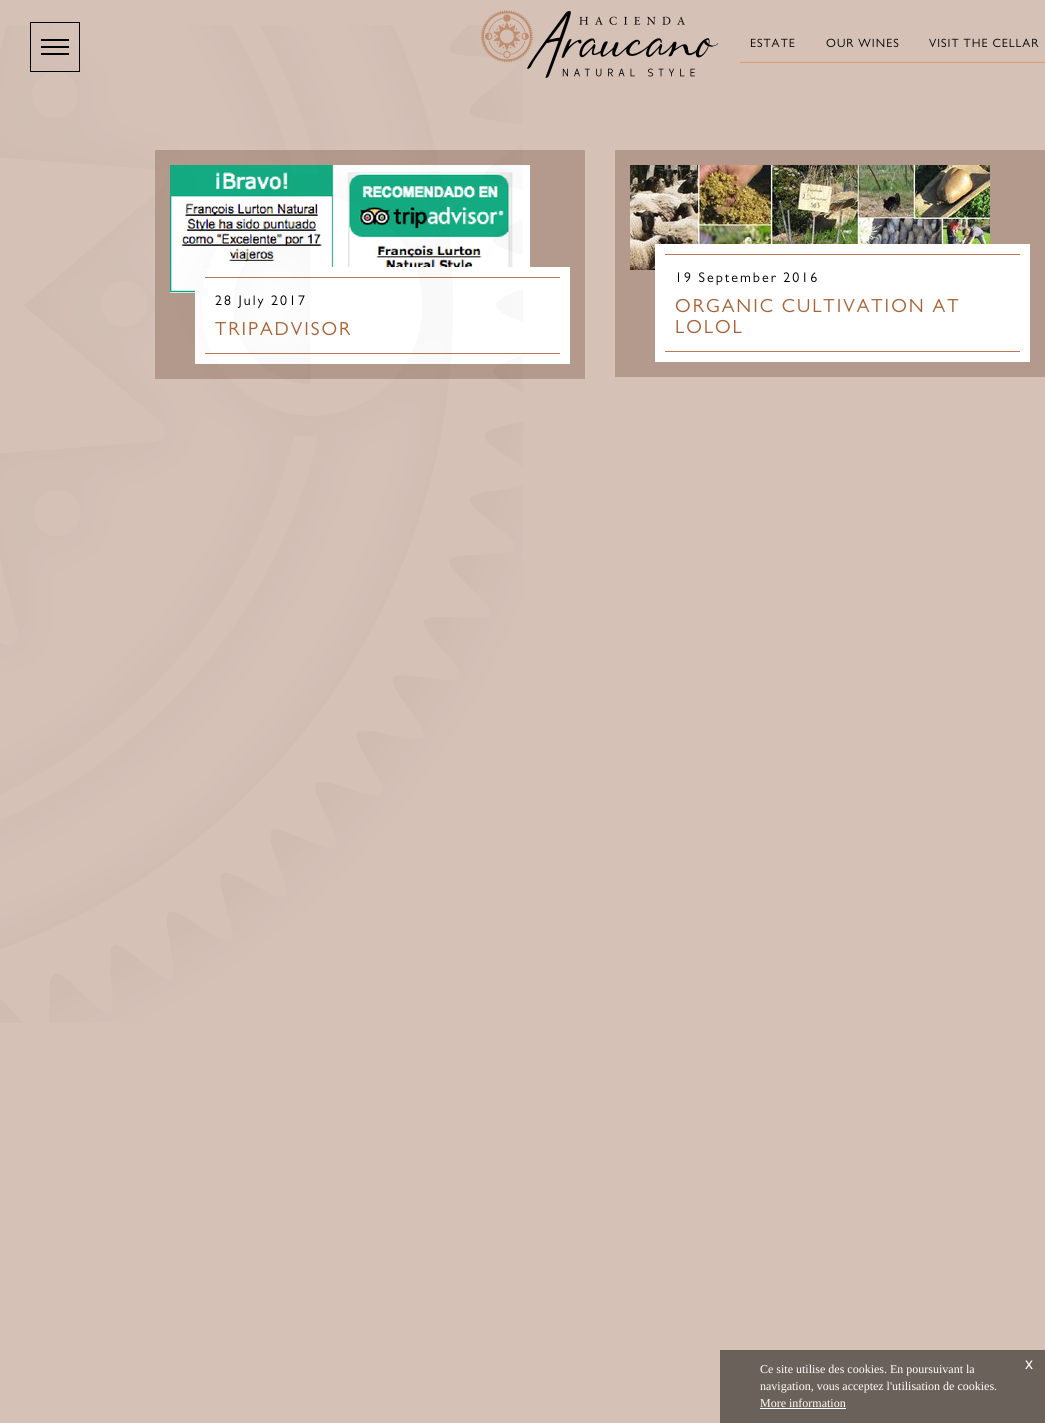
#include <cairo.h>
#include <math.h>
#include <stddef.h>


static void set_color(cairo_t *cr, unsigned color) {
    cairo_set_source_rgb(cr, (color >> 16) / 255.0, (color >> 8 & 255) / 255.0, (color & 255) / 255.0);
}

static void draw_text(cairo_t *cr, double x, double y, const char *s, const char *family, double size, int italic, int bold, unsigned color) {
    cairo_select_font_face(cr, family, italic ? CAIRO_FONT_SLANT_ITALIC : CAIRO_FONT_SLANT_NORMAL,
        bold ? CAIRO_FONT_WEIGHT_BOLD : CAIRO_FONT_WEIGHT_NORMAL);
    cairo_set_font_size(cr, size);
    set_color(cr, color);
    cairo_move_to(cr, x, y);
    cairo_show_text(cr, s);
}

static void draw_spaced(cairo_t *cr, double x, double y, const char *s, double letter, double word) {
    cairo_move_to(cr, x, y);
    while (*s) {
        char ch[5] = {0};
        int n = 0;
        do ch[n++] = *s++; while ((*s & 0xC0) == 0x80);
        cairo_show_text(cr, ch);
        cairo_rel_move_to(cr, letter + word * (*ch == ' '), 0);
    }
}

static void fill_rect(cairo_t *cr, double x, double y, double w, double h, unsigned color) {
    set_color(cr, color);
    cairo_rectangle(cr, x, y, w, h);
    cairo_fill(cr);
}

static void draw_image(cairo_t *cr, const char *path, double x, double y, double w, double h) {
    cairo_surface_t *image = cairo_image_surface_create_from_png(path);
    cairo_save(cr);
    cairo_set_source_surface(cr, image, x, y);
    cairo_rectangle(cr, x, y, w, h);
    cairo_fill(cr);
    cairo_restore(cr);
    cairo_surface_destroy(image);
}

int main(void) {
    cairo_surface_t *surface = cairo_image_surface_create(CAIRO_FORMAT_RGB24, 1045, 1423);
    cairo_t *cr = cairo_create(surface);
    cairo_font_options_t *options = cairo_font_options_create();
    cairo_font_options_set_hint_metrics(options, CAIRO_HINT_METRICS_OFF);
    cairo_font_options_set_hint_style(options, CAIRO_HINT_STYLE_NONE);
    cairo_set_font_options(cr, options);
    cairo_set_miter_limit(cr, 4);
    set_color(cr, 0xD5C1B6);
    cairo_paint(cr);
    fill_rect(cr, 155, 150, 430, 229, 0xB49A8D);
    draw_image(cr, "assets/img4.png", 170, 165, 360, 128);
    fill_rect(cr, 195, 267, 375, 97, 0xFFFFFF);
    fill_rect(cr, 205, 277, 355, 1, 0xB97851);
    cairo_select_font_face(cr, "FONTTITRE", CAIRO_FONT_SLANT_NORMAL, CAIRO_FONT_WEIGHT_NORMAL);
    cairo_set_font_size(cr, 14);
    set_color(cr, 0x010101);
    draw_spaced(cr, 215, 305, "28 July 2017", 2, 0);
    cairo_set_font_size(cr, 19);
    set_color(cr, 0xA96236);
    draw_spaced(cr, 215, 335, "TRIPADVISOR", 2, 0);
    fill_rect(cr, 205, 353, 355, 1, 0xB97851);
    draw_image(cr, "assets/img2.png", 0, 25, 523, 998);
    cairo_rectangle(cr, 30.5, 22.5, 49, 49);
    set_color(cr, 0x000000);
    cairo_set_line_width(cr, 1);
    cairo_stroke(cr);
    fill_rect(cr, 41, 39, 28, 2, 0x000000);
    fill_rect(cr, 41, 46, 28, 2, 0x000000);
    fill_rect(cr, 41, 53, 28, 2, 0x000000);
    draw_image(cr, "assets/img1.png", 480, 10, 239, 68);
    cairo_set_font_size(cr, 12);
    set_color(cr, 0x010101);
    draw_spaced(cr, 750, 47, "ESTATE", 1, 0);
    draw_spaced(cr, 826, 47, "OUR WINES", 1, 0);
    draw_spaced(cr, 929, 47, "VISIT THE CELLAR", 1, 0);
    fill_rect(cr, 740, 62, 305, 1, 0xDA9A73);
    fill_rect(cr, 615, 150, 430, 227, 0xB49A8D);
    draw_image(cr, "assets/img3.png", 630, 165, 360, 105);
    fill_rect(cr, 655, 244, 375, 118, 0xFFFFFF);
    fill_rect(cr, 665, 254, 355, 1, 0xB97851);
    cairo_set_font_size(cr, 14);
    set_color(cr, 0x010101);
    draw_spaced(cr, 675, 282, "19 September 2016", 2, 0);
    cairo_set_font_size(cr, 19);
    set_color(cr, 0xA96236);
    draw_spaced(cr, 675, 312, "ORGANIC CULTIVATION AT", 2, 0);
    draw_spaced(cr, 675, 333, "LOLOL", 2, 0);
    fill_rect(cr, 665, 351, 355, 1, 0xB97851);
    fill_rect(cr, 720, 1350, 325, 73, 0x6B615B);
    draw_text(cr, 760, 1373, "Ce site utilise des cookies. En poursuivant la", "Liberation Serif", 12, 0, 0, 0xFFFFFF);
    draw_text(cr, 1025, 1369, "x", "Liberation Sans", 16, 0, 0, 0xFFFFFF);
    draw_text(cr, 760, 1390, "navigation, vous acceptez l'utilisation de cookies.", "Liberation Serif", 12, 0, 0, 0xFFFFFF);
    draw_text(cr, 760, 1407, "More information", "Liberation Serif", 12, 0, 0, 0xFFFFFF);
    fill_rect(cr, 760, 1408, 86, 1, 0xFFFFFF);
    cairo_surface_write_to_png(surface, "output.png");
    cairo_font_options_destroy(options);
    cairo_destroy(cr);
    cairo_surface_destroy(surface);
    return 0;
}
